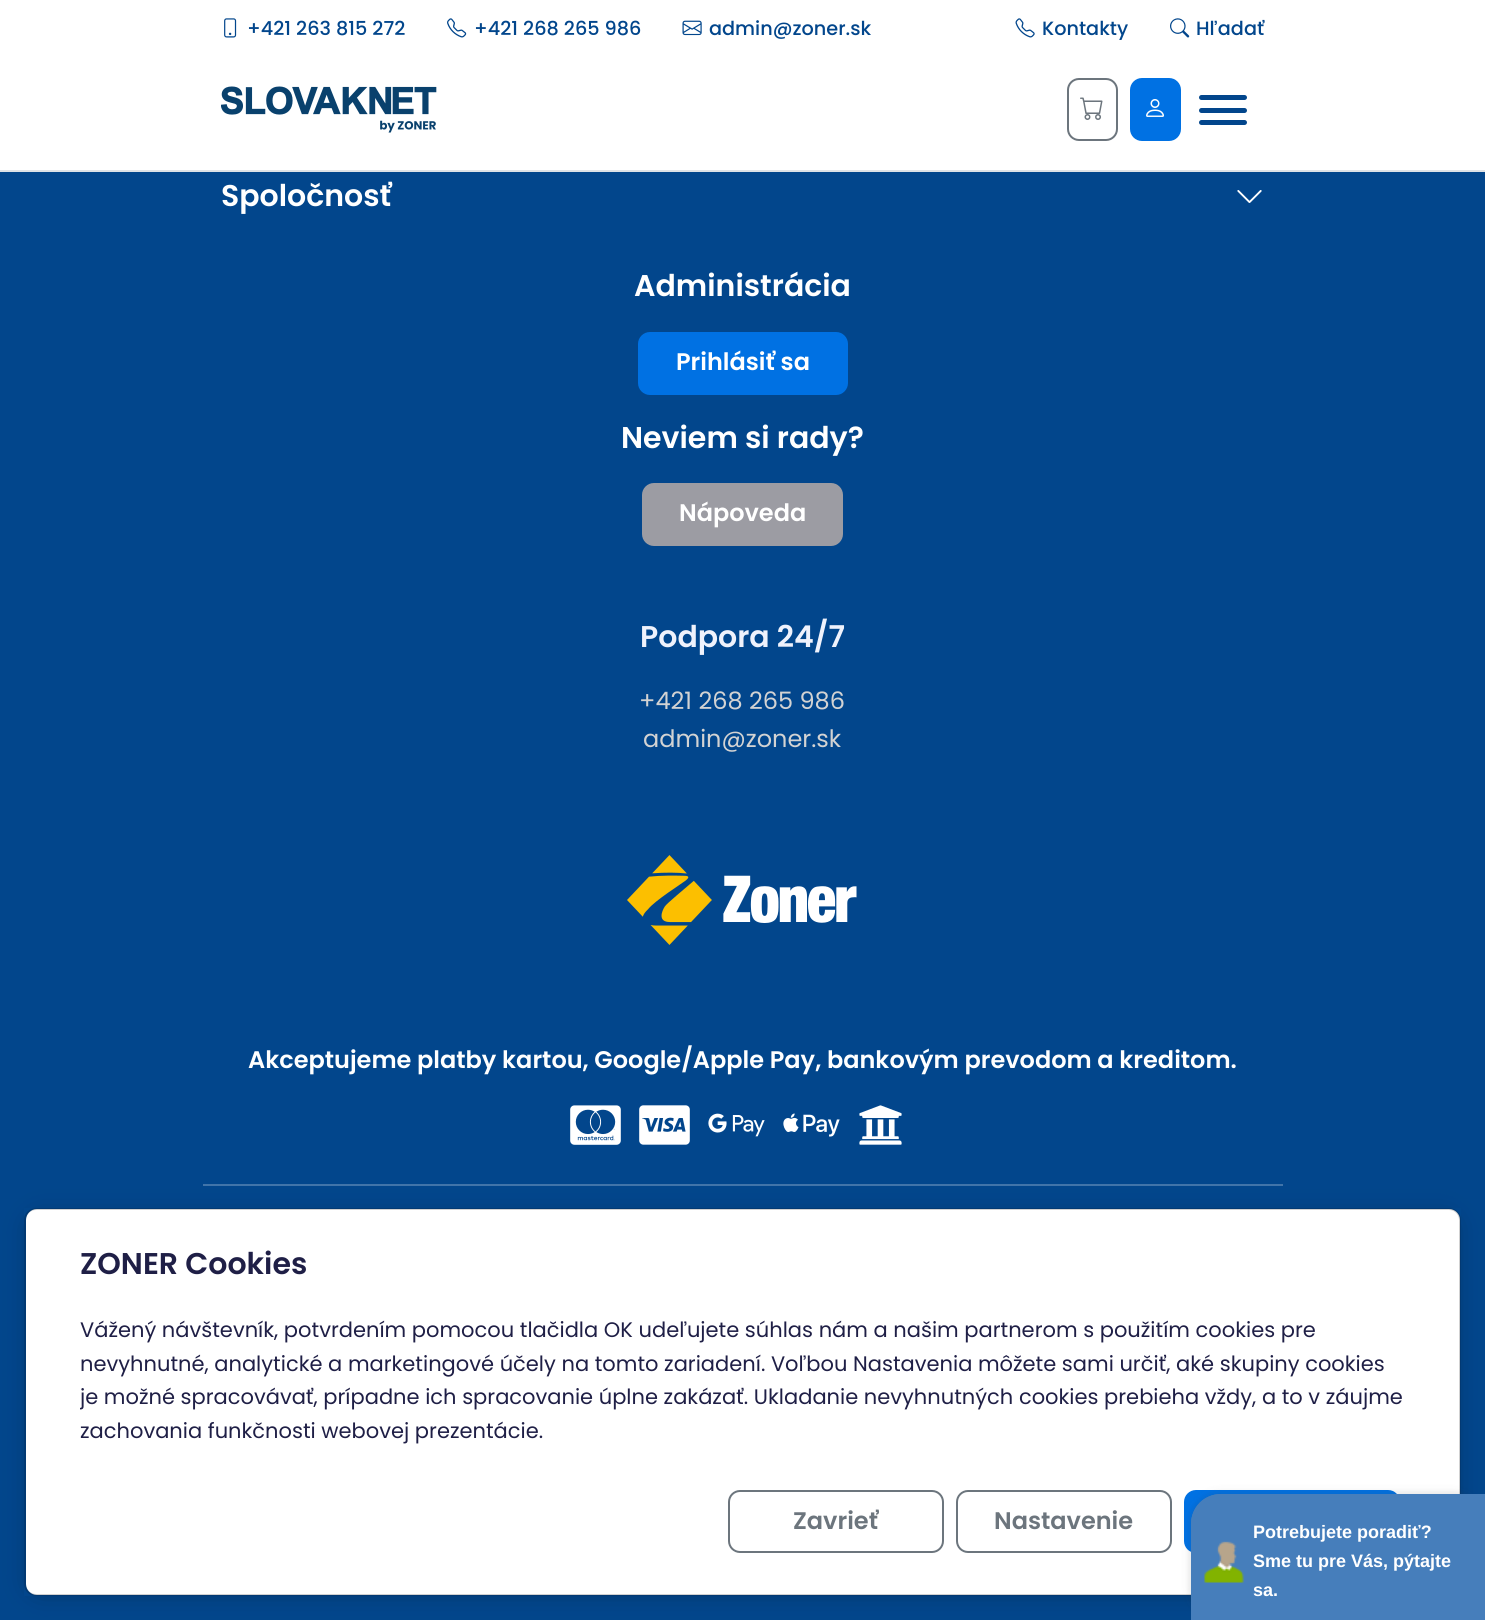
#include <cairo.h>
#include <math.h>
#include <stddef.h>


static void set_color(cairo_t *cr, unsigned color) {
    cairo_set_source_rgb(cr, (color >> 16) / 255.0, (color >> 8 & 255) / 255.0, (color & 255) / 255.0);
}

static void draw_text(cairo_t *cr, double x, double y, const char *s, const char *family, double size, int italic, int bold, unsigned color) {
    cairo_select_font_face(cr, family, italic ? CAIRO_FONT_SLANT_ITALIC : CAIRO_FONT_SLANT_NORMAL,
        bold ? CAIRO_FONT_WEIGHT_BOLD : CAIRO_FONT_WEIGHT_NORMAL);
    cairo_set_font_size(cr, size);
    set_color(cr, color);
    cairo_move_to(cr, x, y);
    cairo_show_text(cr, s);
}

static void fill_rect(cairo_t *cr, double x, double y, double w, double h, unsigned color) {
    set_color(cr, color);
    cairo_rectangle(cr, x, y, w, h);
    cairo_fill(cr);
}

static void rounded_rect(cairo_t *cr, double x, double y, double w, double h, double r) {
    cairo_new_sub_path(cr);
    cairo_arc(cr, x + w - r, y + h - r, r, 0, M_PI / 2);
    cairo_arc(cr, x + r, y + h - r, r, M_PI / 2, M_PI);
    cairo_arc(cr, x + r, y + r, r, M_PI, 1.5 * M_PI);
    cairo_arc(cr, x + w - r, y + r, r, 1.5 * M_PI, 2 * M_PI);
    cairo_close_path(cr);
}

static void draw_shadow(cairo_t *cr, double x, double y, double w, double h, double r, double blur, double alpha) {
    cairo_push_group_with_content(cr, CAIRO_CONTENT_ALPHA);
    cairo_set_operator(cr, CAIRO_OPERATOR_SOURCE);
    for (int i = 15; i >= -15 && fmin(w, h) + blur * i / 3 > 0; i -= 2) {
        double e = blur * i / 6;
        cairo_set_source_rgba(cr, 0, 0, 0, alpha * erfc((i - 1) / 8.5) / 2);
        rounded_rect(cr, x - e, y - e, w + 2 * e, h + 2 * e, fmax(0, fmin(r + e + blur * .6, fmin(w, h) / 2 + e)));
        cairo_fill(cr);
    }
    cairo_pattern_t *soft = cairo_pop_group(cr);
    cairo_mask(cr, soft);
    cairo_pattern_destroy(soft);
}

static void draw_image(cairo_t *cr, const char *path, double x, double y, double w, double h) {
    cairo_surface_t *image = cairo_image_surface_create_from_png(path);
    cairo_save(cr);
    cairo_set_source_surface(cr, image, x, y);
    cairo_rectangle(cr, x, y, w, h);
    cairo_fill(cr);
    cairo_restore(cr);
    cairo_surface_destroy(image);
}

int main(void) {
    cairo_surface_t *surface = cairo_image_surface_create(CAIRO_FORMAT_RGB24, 1485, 1620);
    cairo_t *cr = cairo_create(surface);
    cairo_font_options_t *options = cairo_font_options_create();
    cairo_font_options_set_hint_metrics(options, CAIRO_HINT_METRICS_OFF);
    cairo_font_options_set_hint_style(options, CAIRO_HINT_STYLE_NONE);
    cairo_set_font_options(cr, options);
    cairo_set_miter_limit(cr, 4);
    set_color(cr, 0x02468C);
    cairo_paint(cr);
    fill_rect(cr, 0, 0, 1485, 170, 0xFFFFFF);
    draw_image(cr, "assets/img1.png", 224, 18, 13, 20);
    draw_text(cr, 247, 35, "+421 263 815 272", "Poppins Medium", 19.25, 0, 0, 0x02468C);
    draw_image(cr, "assets/img2.png", 447, 18, 20, 20);
    draw_text(cr, 474, 35, "+421 268 265 986", "Poppins Medium", 19.25, 0, 0, 0x02468C);
    draw_image(cr, "assets/img3.png", 682, 20, 20, 16);
    draw_text(cr, 709, 35, "admin@zoner.sk", "Poppins Medium", 19.25, 0, 0, 0x02468C);
    draw_image(cr, "assets/img4.png", 1015, 18, 20, 20);
    draw_text(cr, 1042, 35, "Kontakty", "Poppins Medium", 19.25, 0, 0, 0x02468C);
    draw_image(cr, "assets/img5.png", 1170, 18, 20, 20);
    draw_text(cr, 1196, 35, "Hľadať", "Poppins Medium", 19.25, 0, 0, 0x02468C);
    fill_rect(cr, 0, 170, 1485, 2, 0xDEE2E6);
    draw_image(cr, "assets/img6.png", 221, 86, 216, 47);
    rounded_rect(cr, 1068, 79, 49, 61, 11);
    set_color(cr, 0x6C757D);
    cairo_stroke(cr);
    draw_image(cr, "assets/img7.png", 1080, 97, 23, 23);
    set_color(cr, 0x0071E3);
    rounded_rect(cr, 1131, 79, 49, 61, 11);
    cairo_fill_preserve(cr);
    cairo_stroke(cr);
    draw_image(cr, "assets/img8.png", 1146, 99, 18, 18);
    set_color(cr, 0x02468C);
    rounded_rect(cr, 1199, 95, 48, 5, 2.5);
    cairo_fill(cr);
    rounded_rect(cr, 1199, 108, 48, 5, 2.5);
    cairo_fill(cr);
    rounded_rect(cr, 1199, 120, 48, 5, 2.5);
    cairo_fill(cr);
    draw_text(cr, 221, 206, "Spoločnosť", "Poppins SemiBold", 30, 0, 0, 0xFFFFFF);
    draw_image(cr, "assets/img9.png", 1237, 190, 25, 13);
    draw_text(cr, 634, 296, "Administrácia", "Poppins SemiBold", 30, 0, 0, 0xFFFFFF);
    set_color(cr, 0x0071E3);
    rounded_rect(cr, 639, 333, 208, 61, 11);
    cairo_fill_preserve(cr);
    cairo_stroke(cr);
    draw_text(cr, 676, 370, "Prihlásiť sa", "Poppins SemiBold", 24, 0, 0, 0xFFFFFF);
    draw_text(cr, 621, 448, "Neviem si rady?", "Poppins SemiBold", 30, 0, 0, 0xFFFFFF);
    set_color(cr, 0x9C9CA3);
    rounded_rect(cr, 643, 484, 199, 61, 11);
    cairo_fill_preserve(cr);
    cairo_stroke(cr);
    draw_text(cr, 679, 521, "Nápoveda", "Poppins SemiBold", 24, 0, 0, 0xFFFFFF);
    draw_text(cr, 640, 647, "Podpora 24/7", "Poppins SemiBold", 30, 0, 0, 0xEFF2FC);
    draw_text(cr, 639, 709, "+421 268 265 986", "Poppins", 24, 0, 0, 0xD3D3D3);
    draw_text(cr, 643, 747, "admin@zoner.sk", "Poppins", 24, 0, 0, 0xD3D3D3);
    draw_image(cr, "assets/img10.png", 627, 855, 230, 90);
    draw_text(cr, 248, 1068, "Akceptujeme platby kartou, Google/Apple Pay, bankovým prevodom a kreditom.", "Poppins SemiBold", 24, 0, 0, 0xFFFFFF);
    draw_image(cr, "assets/img11.png", 570, 1105, 51, 40);
    draw_image(cr, "assets/img12.png", 639, 1105, 51, 40);
    draw_image(cr, "assets/img13.png", 708, 1113, 57, 24);
    draw_image(cr, "assets/img14.png", 783, 1113, 57, 24);
    draw_image(cr, "assets/img15.png", 859, 1105, 43, 40);
    fill_rect(cr, 203, 1184, 1080, 2, 0x4174A9);
    cairo_save(cr);
    cairo_set_fill_rule(cr, CAIRO_FILL_RULE_EVEN_ODD);
    cairo_new_path(cr);
    cairo_move_to(cr, 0, 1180);
    cairo_line_to(cr, 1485, 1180);
    cairo_line_to(cr, 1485, 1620);
    cairo_line_to(cr, 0, 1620);
    cairo_close_path(cr);
    cairo_move_to(cr, 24, 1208);
    cairo_line_to(cr, 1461, 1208);
    cairo_line_to(cr, 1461, 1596);
    cairo_line_to(cr, 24, 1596);
    cairo_close_path(cr);
    cairo_clip(cr);
    set_color(cr, 0x000000);
    draw_shadow(cr, 39, 1226, 1407, 358, 0, 15, 0.5);
    cairo_restore(cr);
    set_color(cr, 0xFFFFFF);
    rounded_rect(cr, 26, 1209, 1434, 386, 11);
    cairo_fill(cr);
    rounded_rect(cr, 25, 1209, 1435, 386, 11);
    cairo_set_source_rgba(cr, 0, 0, 0, 0.18);
    cairo_stroke(cr);
    draw_text(cr, 80, 1274, "ZONER Cookies", "Poppins SemiBold", 30, 0, 0, 0x1F1F46);
    draw_text(cr, 80, 1337, "Vážený návštevník, potvrdením pomocou tlačidla OK udeľujete súhlas nám a našim partnerom s použitím cookies pre", "Poppins", 21, 0, 0, 0x1F1F46);
    draw_text(cr, 80, 1371, "nevyhnutné, analytické a marketingové účely na tomto zariadení. Voľbou Nastavenia môžete sami určiť, aké skupiny cookies", "Poppins", 21, 0, 0, 0x1F1F46);
    cairo_save(cr);
    cairo_rectangle(cr, 80, 1313, 1326, 159);
    cairo_clip(cr);
    draw_text(cr, 80, 1404, "je možné spracovávať, prípadne ich spracovanie úplne zakázať. Ukladanie nevyhnutných cookies prebieha vždy, a to v záujme", "Poppins", 21, 0, 0, 0x1F1F46);
    cairo_restore(cr);
    draw_text(cr, 80, 1438, "zachovania funkčnosti webovej prezentácie.", "Poppins", 21, 0, 0, 0x1F1F46);
    rounded_rect(cr, 729, 1491, 214, 61, 11);
    set_color(cr, 0x6C757D);
    cairo_stroke(cr);
    draw_text(cr, 793, 1529, "Zavrieť", "Poppins SemiBold", 24, 0, 0, 0x6C757D);
    rounded_rect(cr, 957, 1491, 214, 61, 11);
    cairo_stroke(cr);
    draw_text(cr, 994, 1529, "Nastavenie", "Poppins SemiBold", 24, 0, 0, 0x6C757D);
    set_color(cr, 0x0071E3);
    rounded_rect(cr, 1185, 1491, 214, 61, 11);
    cairo_fill_preserve(cr);
    cairo_stroke(cr);
    set_color(cr, 0x323232);
    draw_shadow(cr, 1190, 1493, 294, 126, 30, 4, 0.17);
    set_color(cr, 0x467EBB);
    cairo_new_path(cr);
    cairo_move_to(cr, 1221, 1494);
    cairo_line_to(cr, 1485, 1494);
    cairo_line_to(cr, 1485, 1620);
    cairo_line_to(cr, 1191, 1620);
    cairo_line_to(cr, 1191, 1524);
    cairo_curve_to(cr, 1191, 1507.5, 1204.5, 1494, 1221, 1494);
    cairo_close_path(cr);
    cairo_fill(cr);
    cairo_set_fill_rule(cr, CAIRO_FILL_RULE_EVEN_ODD);
    cairo_new_path(cr);
    cairo_move_to(cr, 1221, 1494);
    cairo_line_to(cr, 1485, 1494);
    cairo_line_to(cr, 1485, 1620);
    cairo_line_to(cr, 1191, 1620);
    cairo_line_to(cr, 1191, 1524);
    cairo_curve_to(cr, 1191, 1507, 1204, 1494, 1221, 1494);
    cairo_close_path(cr);
    cairo_move_to(cr, 1221, 1496);
    cairo_line_to(cr, 1485, 1496);
    cairo_line_to(cr, 1485, 1620);
    cairo_line_to(cr, 1192, 1620);
    cairo_line_to(cr, 1192, 1524);
    cairo_curve_to(cr, 1192, 1508, 1205, 1496, 1221, 1496);
    cairo_close_path(cr);
    cairo_fill(cr);
    draw_image(cr, "assets/img16.png", 1204, 1541, 40, 42);
    draw_text(cr, 1253, 1538, "Potrebujete poradiť?", "Liberation Sans", 18, 0, 1, 0xFFFFFF);
    draw_text(cr, 1253, 1567, "Sme tu pre Vás, pýtajte", "Liberation Sans", 18, 0, 1, 0xFFFFFF);
    draw_text(cr, 1253, 1596, "sa.", "Liberation Sans", 18, 0, 1, 0xFFFFFF);
    cairo_surface_write_to_png(surface, "output.png");
    cairo_font_options_destroy(options);
    cairo_destroy(cr);
    cairo_surface_destroy(surface);
    return 0;
}
